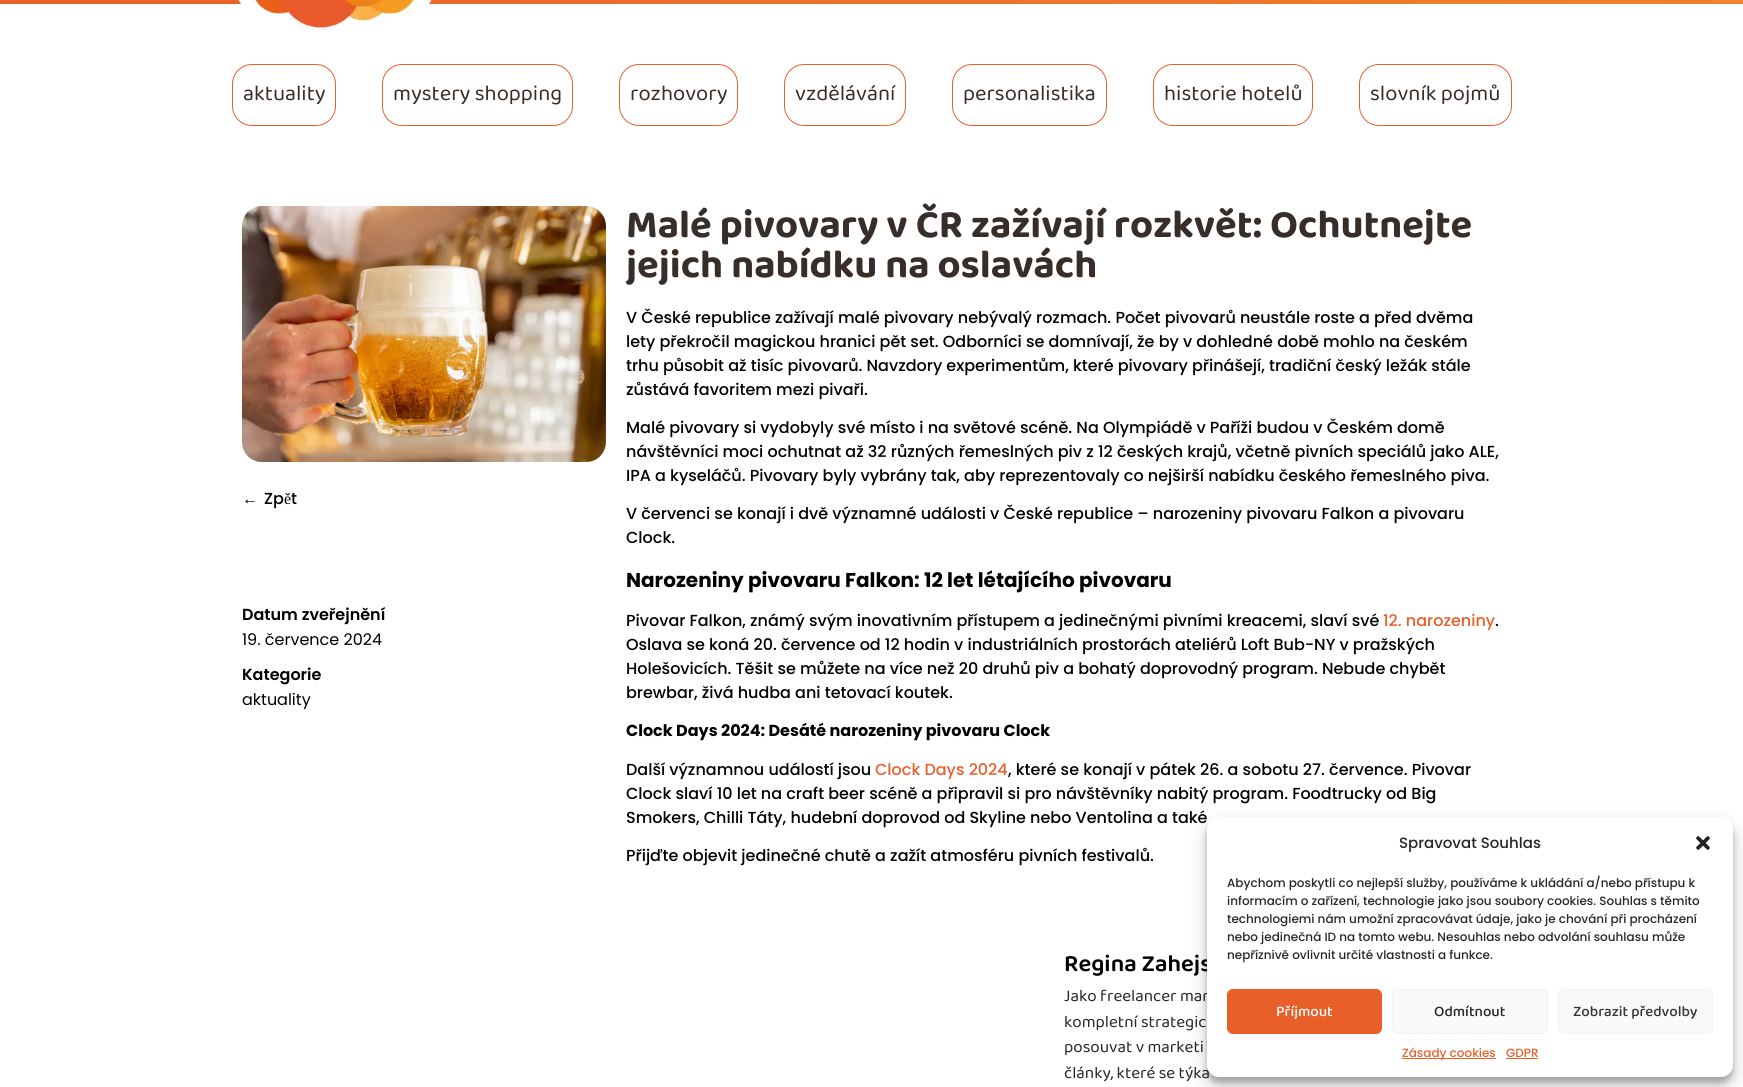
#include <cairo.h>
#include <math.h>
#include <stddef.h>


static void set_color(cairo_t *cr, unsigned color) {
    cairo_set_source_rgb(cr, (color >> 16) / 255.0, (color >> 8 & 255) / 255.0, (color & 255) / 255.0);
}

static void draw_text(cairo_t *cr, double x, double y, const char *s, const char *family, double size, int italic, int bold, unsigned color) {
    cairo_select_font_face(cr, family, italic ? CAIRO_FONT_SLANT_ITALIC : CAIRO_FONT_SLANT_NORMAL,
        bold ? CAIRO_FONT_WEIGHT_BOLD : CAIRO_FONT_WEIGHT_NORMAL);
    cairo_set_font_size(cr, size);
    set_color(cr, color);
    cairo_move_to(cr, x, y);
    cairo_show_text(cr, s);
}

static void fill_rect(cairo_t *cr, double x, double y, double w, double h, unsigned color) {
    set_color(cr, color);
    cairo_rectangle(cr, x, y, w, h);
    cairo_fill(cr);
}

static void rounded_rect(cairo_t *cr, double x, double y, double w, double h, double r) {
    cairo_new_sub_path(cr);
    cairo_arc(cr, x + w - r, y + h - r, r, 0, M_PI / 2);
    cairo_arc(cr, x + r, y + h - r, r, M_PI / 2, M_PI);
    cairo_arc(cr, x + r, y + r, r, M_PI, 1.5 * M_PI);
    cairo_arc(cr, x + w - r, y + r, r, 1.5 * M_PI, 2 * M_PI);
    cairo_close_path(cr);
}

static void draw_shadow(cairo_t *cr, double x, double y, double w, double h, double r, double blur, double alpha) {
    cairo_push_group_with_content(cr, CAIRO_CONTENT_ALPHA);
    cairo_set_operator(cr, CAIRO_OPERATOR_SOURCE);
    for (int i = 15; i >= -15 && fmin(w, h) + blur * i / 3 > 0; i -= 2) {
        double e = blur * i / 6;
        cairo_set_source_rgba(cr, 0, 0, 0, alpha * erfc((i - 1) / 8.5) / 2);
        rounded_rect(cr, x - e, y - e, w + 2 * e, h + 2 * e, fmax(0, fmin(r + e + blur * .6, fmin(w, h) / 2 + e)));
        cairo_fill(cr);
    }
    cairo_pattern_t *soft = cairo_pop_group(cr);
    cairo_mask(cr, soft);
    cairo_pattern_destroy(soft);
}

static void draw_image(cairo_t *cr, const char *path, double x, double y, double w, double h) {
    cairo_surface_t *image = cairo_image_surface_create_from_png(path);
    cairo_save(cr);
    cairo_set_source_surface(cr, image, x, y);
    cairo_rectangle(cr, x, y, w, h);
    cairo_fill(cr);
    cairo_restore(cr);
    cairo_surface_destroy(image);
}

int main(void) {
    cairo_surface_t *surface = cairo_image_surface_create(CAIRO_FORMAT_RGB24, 1743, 1087);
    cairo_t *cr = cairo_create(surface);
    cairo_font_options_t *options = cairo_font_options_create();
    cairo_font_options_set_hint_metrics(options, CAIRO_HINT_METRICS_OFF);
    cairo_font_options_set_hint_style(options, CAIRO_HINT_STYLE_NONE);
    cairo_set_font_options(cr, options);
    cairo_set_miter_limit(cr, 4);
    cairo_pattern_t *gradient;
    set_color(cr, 0xFFFFFF);
    cairo_paint(cr);
    gradient = cairo_pattern_create_linear(0, -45, 1743, -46);
    cairo_pattern_add_color_stop_rgba(gradient, 0, 0.914, 0.373, 0.161, 1);
    cairo_pattern_add_color_stop_rgba(gradient, 1, 0.933, 0.51, 0.18, 1);
    cairo_set_source(cr, gradient);
    cairo_pattern_destroy(gradient);
    cairo_rectangle(cr, 0, 0, 1743, 4);
    cairo_fill(cr);
    draw_image(cr, "assets/img1.png", 238, 0, 194, 31);
    rounded_rect(cr, 232.5, 64.5, 103, 61, 19.5);
    set_color(cr, 0xE95F29);
    cairo_set_line_width(cr, 1);
    cairo_stroke(cr);
    draw_text(cr, 243, 100, "aktuality", "Baloo 2", 22, 0, 0, 0x372E2A);
    rounded_rect(cr, 382.5, 64.5, 190, 61, 19.5);
    set_color(cr, 0xE95F29);
    cairo_stroke(cr);
    draw_text(cr, 393, 100, "mystery shopping", "Baloo 2", 22, 0, 0, 0x372E2A);
    rounded_rect(cr, 619.5, 64.5, 118, 61, 19.5);
    set_color(cr, 0xE95F29);
    cairo_stroke(cr);
    draw_text(cr, 630, 100, "rozhovory", "Baloo 2", 22, 0, 0, 0x372E2A);
    rounded_rect(cr, 784.5, 64.5, 121, 61, 19.5);
    set_color(cr, 0xE95F29);
    cairo_stroke(cr);
    draw_text(cr, 795, 100, "vzdělávání", "Baloo 2", 22, 0, 0, 0x372E2A);
    rounded_rect(cr, 952.5, 64.5, 154, 61, 19.5);
    set_color(cr, 0xE95F29);
    cairo_stroke(cr);
    draw_text(cr, 963, 100, "personalistika", "Baloo 2", 22, 0, 0, 0x372E2A);
    rounded_rect(cr, 1153.5, 64.5, 159, 61, 19.5);
    set_color(cr, 0xE95F29);
    cairo_stroke(cr);
    draw_text(cr, 1164, 100, "historie hotelů", "Baloo 2", 22, 0, 0, 0x372E2A);
    rounded_rect(cr, 1359.5, 64.5, 152, 61, 19.5);
    set_color(cr, 0xE95F29);
    cairo_stroke(cr);
    draw_text(cr, 1370, 100, "slovník pojmů", "Baloo 2", 22, 0, 0, 0x372E2A);
    draw_image(cr, "assets/img2.png", 242, 206, 364, 256);
    draw_text(cr, 242, 504, "←", "Liberation Serif", 16, 0, 0, 0x000000);
    draw_text(cr, 264, 504, "Zp", "Poppins Medium", 16, 0, 0, 0x000000);
    draw_text(cr, 284, 504, "ě", "Liberation Serif", 16, 0, 0, 0x000000);
    draw_text(cr, 291, 504, "t", "Poppins Medium", 16, 0, 0, 0x000000);
    draw_text(cr, 242, 620, "Datum zveřejnění", "Poppins SemiBold", 16, 0, 0, 0x000000);
    draw_text(cr, 242, 645, "19. července 2024", "Poppins", 16, 0, 0, 0x000000);
    draw_text(cr, 242, 680, "Kategorie", "Poppins SemiBold", 16, 0, 0, 0x000000);
    draw_text(cr, 242, 705, "aktuality", "Poppins", 16, 0, 0, 0x000000);
    draw_text(cr, 626, 237, "Malé pivovary v ČR zažívají rozkvět: Ochutnejte", "Baloo 2", 40, 0, 1, 0x372E2A);
    draw_text(cr, 626, 277, "jejich nabídku na oslavách", "Baloo 2", 40, 0, 1, 0x372E2A);
    draw_text(cr, 626, 323, "V České republice zažívají malé pivovary nebývalý rozmach. Počet pivovarů neustále roste a před dvěma", "Poppins Medium", 16, 0, 0, 0x000000);
    draw_text(cr, 626, 347, "lety překročil magickou hranici pět set. Odborníci se domnívají, že by v dohledné době mohlo na českém", "Poppins Medium", 16, 0, 0, 0x000000);
    draw_text(cr, 626, 371, "trhu působit až tisíc pivovarů. Navzdory experimentům, které pivovary přinášejí, tradiční český ležák stále", "Poppins Medium", 16, 0, 0, 0x000000);
    draw_text(cr, 626, 395, "zůstává favoritem mezi pivaři.", "Poppins Medium", 16, 0, 0, 0x000000);
    draw_text(cr, 626, 433, "Malé pivovary si vydobyly své místo i na světové scéně. Na Olympiádě v Paříži budou v Českém domě", "Poppins Medium", 16, 0, 0, 0x000000);
    draw_text(cr, 626, 457, "návštěvníci moci ochutnat až 32 různých řemeslných piv z 12 českých krajů, včetně pivních speciálů jako ALE,", "Poppins Medium", 16, 0, 0, 0x000000);
    draw_text(cr, 626, 481, "IPA a kyseláčů. Pivovary byly vybrány tak, aby reprezentovaly co nejširší nabídku českého řemeslného piva.", "Poppins Medium", 16, 0, 0, 0x000000);
    draw_text(cr, 626, 519, "V červenci se konají i dvě významné události v České republice – narozeniny pivovaru Falkon a pivovaru", "Poppins Medium", 16, 0, 0, 0x000000);
    draw_text(cr, 626, 543, "Clock.", "Poppins Medium", 16, 0, 0, 0x000000);
    draw_text(cr, 626, 587, "Narozeniny pivovaru Falkon: 12 let létajícího pivovaru", "Poppins", 20, 0, 1, 0x000000);
    draw_text(cr, 626, 626, "Pivovar Falkon, známý svým inovativním přístupem a jedinečnými pivními kreacemi, slaví své", "Poppins Medium", 16, 0, 0, 0x000000);
    draw_text(cr, 1383, 626, "12. narozeniny", "Poppins Medium", 16, 0, 0, 0xE95F29);
    draw_text(cr, 1495, 626, ".", "Poppins Medium", 16, 0, 0, 0x000000);
    draw_text(cr, 626, 650, "Oslava se koná 20. července od 12 hodin v industriálních prostorách ateliérů Loft Bub-NY v pražských", "Poppins Medium", 16, 0, 0, 0x000000);
    draw_text(cr, 626, 674, "Holešovicích. Těšit se můžete na více než 20 druhů piv a bohatý doprovodný program. Nebude chybět", "Poppins Medium", 16, 0, 0, 0x000000);
    draw_text(cr, 626, 698, "brewbar, živá hudba ani tetovací koutek.", "Poppins Medium", 16, 0, 0, 0x000000);
    draw_text(cr, 626, 736, "Clock Days 2024: Desáté narozeniny pivovaru Clock", "Poppins", 16, 0, 1, 0x000000);
    draw_text(cr, 626, 775, "Další významnou událostí jsou", "Poppins Medium", 16, 0, 0, 0x000000);
    draw_text(cr, 875, 775, "Clock Days 2024", "Poppins Medium", 16, 0, 0, 0xE95F29);
    draw_text(cr, 1008, 775, ", které se konají v pátek 26. a sobotu 27. července. Pivovar", "Poppins Medium", 16, 0, 0, 0x000000);
    draw_text(cr, 626, 799, "Clock slaví 10 let na craft beer scéně a připravil si pro návštěvníky nabitý program. Foodtrucky od Big", "Poppins Medium", 16, 0, 0, 0x000000);
    draw_text(cr, 626, 823, "Smokers, Chilli Táty, hudební doprovod od Skyline nebo Ventolina a také", "Poppins Medium", 16, 0, 0, 0x000000);
    draw_text(cr, 626, 861, "Přijďte objevit jedinečné chutě a zažít atmosféru pivních festivalů.", "Poppins Medium", 16, 0, 0, 0x000000);
    draw_text(cr, 1064, 971, "Regina Zahejs", "Baloo 2 SemiBold", 24, 0, 0, 0x000000);
    draw_text(cr, 1064, 1001, "Jako freelancer mar", "Baloo 2", 17, 0, 0, 0x272727);
    draw_text(cr, 1064, 1027, "kompletní strategic", "Baloo 2", 17, 0, 0, 0x272727);
    draw_text(cr, 1064, 1052, "posouvat v marketi", "Baloo 2", 17, 0, 0, 0x272727);
    draw_text(cr, 1064, 1078, "články, které se týka", "Baloo 2", 17, 0, 0, 0x272727);
    set_color(cr, 0x000000);
    draw_shadow(cr, 1207, 823, 526, 260, 12, 3, 0.23);
    draw_shadow(cr, 1207, 827, 526, 260, 12, 10, 0.19);
    set_color(cr, 0xFFFFFF);
    rounded_rect(cr, 1207, 817, 526, 260, 12);
    cairo_fill(cr);
    draw_text(cr, 1399, 848, "Spravovat Souhlas", "Poppins Medium", 15, 0, 0, 0x272727);
    draw_image(cr, "assets/img3.png", 1696, 836, 14, 14);
    draw_text(cr, 1227, 887, "Abychom poskytli co nejlepší služby, používáme k ukládání a/nebo přístupu k", "Poppins Medium", 12, 0, 0, 0x272727);
    draw_text(cr, 1227, 905, "informacím o zařízení, technologie jako jsou soubory cookies. Souhlas s těmito", "Poppins Medium", 12, 0, 0, 0x272727);
    draw_text(cr, 1227, 923, "technologiemi nám umožní zpracovávat údaje, jako je chování při procházení", "Poppins Medium", 12, 0, 0, 0x272727);
    draw_text(cr, 1227, 941, "nebo jedinečná ID na tomto webu. Nesouhlas nebo odvolání souhlasu může", "Poppins Medium", 12, 0, 0, 0x272727);
    draw_text(cr, 1227, 959, "nepříznivě ovlivnit určité vlastnosti a funkce.", "Poppins Medium", 12, 0, 0, 0x272727);
    set_color(cr, 0xE95F29);
    rounded_rect(cr, 1227.5, 989.5, 154, 44, 5.5);
    cairo_fill_preserve(cr);
    cairo_stroke(cr);
    draw_text(cr, 1276, 1016, "Příjmout", "Baloo 2 Medium", 15, 0, 0, 0xFFFFFF);
    set_color(cr, 0xF9F9F9);
    rounded_rect(cr, 1392.5, 989.5, 155, 44, 5.5);
    cairo_fill_preserve(cr);
    set_color(cr, 0xF2F2F2);
    cairo_stroke(cr);
    draw_text(cr, 1434, 1016, "Odmítnout", "Baloo 2 Medium", 15, 0, 0, 0x272727);
    set_color(cr, 0xF9F9F9);
    rounded_rect(cr, 1558.5, 989.5, 154, 44, 5.5);
    cairo_fill_preserve(cr);
    set_color(cr, 0xF2F2F2);
    cairo_stroke(cr);
    draw_text(cr, 1573, 1016, "Zobrazit předvolby", "Baloo 2 Medium", 15, 0, 0, 0x333333);
    fill_rect(cr, 1402, 1058, 94, 1, 0xE95F29);
    draw_text(cr, 1402, 1057, "Zásady cookies", "Poppins Medium", 12, 0, 0, 0xE95F29);
    draw_text(cr, 1506, 1057, "GDPR", "Poppins Medium", 12, 0, 0, 0xE95F29);
    fill_rect(cr, 1506, 1058, 32, 1, 0xE95F29);
    cairo_surface_write_to_png(surface, "output.png");
    cairo_font_options_destroy(options);
    cairo_destroy(cr);
    cairo_surface_destroy(surface);
    return 0;
}
